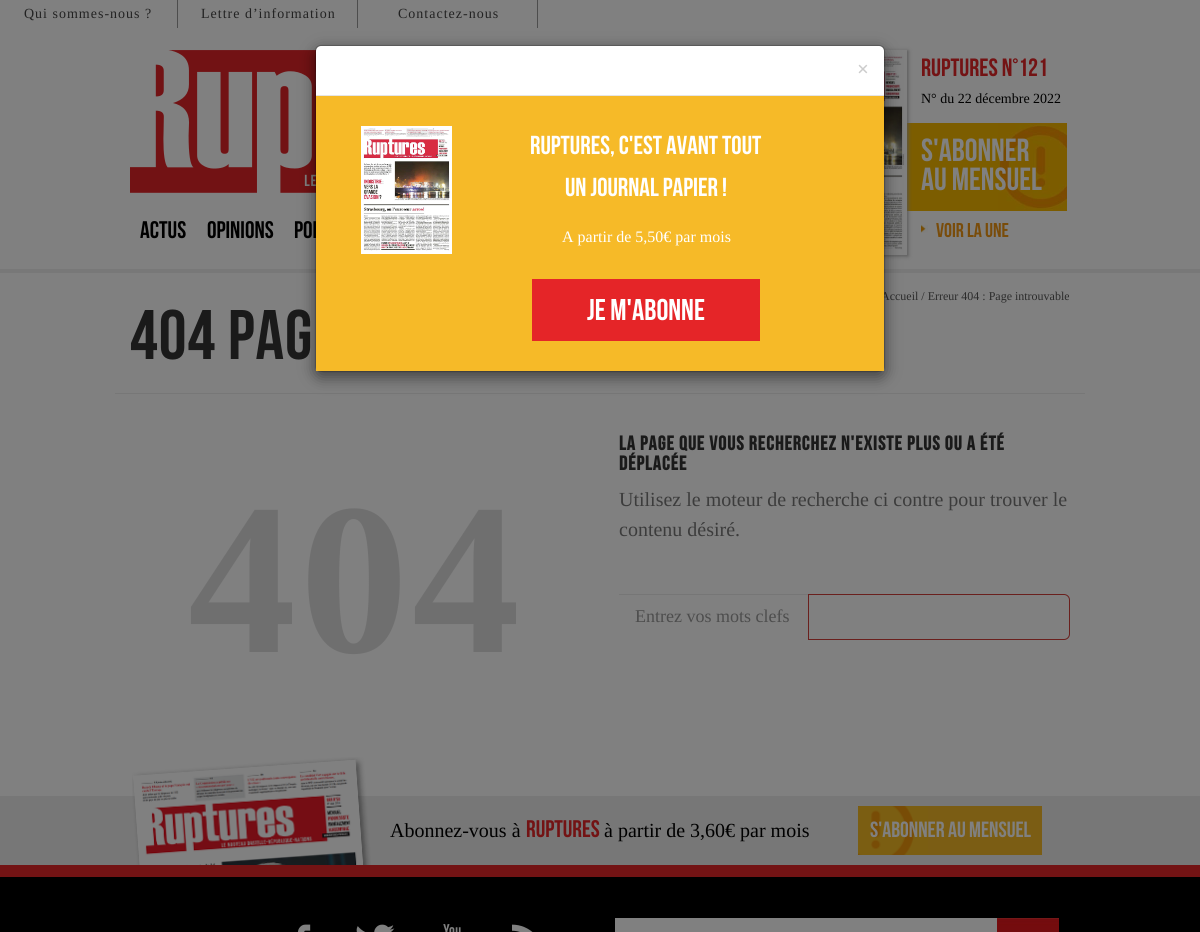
#include <cairo.h>
#include <math.h>
#include <stddef.h>


static void set_color(cairo_t *cr, unsigned color) {
    cairo_set_source_rgb(cr, (color >> 16) / 255.0, (color >> 8 & 255) / 255.0, (color & 255) / 255.0);
}

static void draw_text(cairo_t *cr, double x, double y, const char *s, const char *family, double size, int italic, int bold, unsigned color) {
    cairo_select_font_face(cr, family, italic ? CAIRO_FONT_SLANT_ITALIC : CAIRO_FONT_SLANT_NORMAL,
        bold ? CAIRO_FONT_WEIGHT_BOLD : CAIRO_FONT_WEIGHT_NORMAL);
    cairo_set_font_size(cr, size);
    set_color(cr, color);
    cairo_move_to(cr, x, y);
    cairo_show_text(cr, s);
}

static void draw_spaced(cairo_t *cr, double x, double y, const char *s, double letter, double word) {
    cairo_move_to(cr, x, y);
    while (*s) {
        char ch[5] = {0};
        int n = 0;
        do ch[n++] = *s++; while ((*s & 0xC0) == 0x80);
        cairo_show_text(cr, ch);
        cairo_rel_move_to(cr, letter + word * (*ch == ' '), 0);
    }
}

static void fill_rect(cairo_t *cr, double x, double y, double w, double h, unsigned color) {
    set_color(cr, color);
    cairo_rectangle(cr, x, y, w, h);
    cairo_fill(cr);
}

static void rounded_rect(cairo_t *cr, double x, double y, double w, double h, double r) {
    cairo_new_sub_path(cr);
    cairo_arc(cr, x + w - r, y + h - r, r, 0, M_PI / 2);
    cairo_arc(cr, x + r, y + h - r, r, M_PI / 2, M_PI);
    cairo_arc(cr, x + r, y + r, r, M_PI, 1.5 * M_PI);
    cairo_arc(cr, x + w - r, y + r, r, 1.5 * M_PI, 2 * M_PI);
    cairo_close_path(cr);
}

static void draw_shadow(cairo_t *cr, double x, double y, double w, double h, double r, double blur, double alpha) {
    cairo_push_group_with_content(cr, CAIRO_CONTENT_ALPHA);
    cairo_set_operator(cr, CAIRO_OPERATOR_SOURCE);
    for (int i = 15; i >= -15 && fmin(w, h) + blur * i / 3 > 0; i -= 2) {
        double e = blur * i / 6;
        cairo_set_source_rgba(cr, 0, 0, 0, alpha * erfc((i - 1) / 8.5) / 2);
        rounded_rect(cr, x - e, y - e, w + 2 * e, h + 2 * e, fmax(0, fmin(r + e + blur * .6, fmin(w, h) / 2 + e)));
        cairo_fill(cr);
    }
    cairo_pattern_t *soft = cairo_pop_group(cr);
    cairo_mask(cr, soft);
    cairo_pattern_destroy(soft);
}

static void draw_image(cairo_t *cr, const char *path, double x, double y, double w, double h) {
    cairo_surface_t *image = cairo_image_surface_create_from_png(path);
    cairo_save(cr);
    cairo_set_source_surface(cr, image, x, y);
    cairo_rectangle(cr, x, y, w, h);
    cairo_fill(cr);
    cairo_restore(cr);
    cairo_surface_destroy(image);
}

int main(void) {
    cairo_surface_t *surface = cairo_image_surface_create(CAIRO_FORMAT_RGB24, 1200, 932);
    cairo_t *cr = cairo_create(surface);
    cairo_font_options_t *options = cairo_font_options_create();
    cairo_font_options_set_hint_metrics(options, CAIRO_HINT_METRICS_OFF);
    cairo_font_options_set_hint_style(options, CAIRO_HINT_STYLE_NONE);
    cairo_set_font_options(cr, options);
    cairo_set_miter_limit(cr, 4);
    set_color(cr, 0x808080);
    cairo_paint(cr);
    fill_rect(cr, 177, 0, 1, 28, 0x4D4D4D);
    cairo_select_font_face(cr, "Liberation Serif", CAIRO_FONT_SLANT_NORMAL, CAIRO_FONT_WEIGHT_NORMAL);
    cairo_set_font_size(cr, 14);
    set_color(cr, 0x222222);
    draw_spaced(cr, 24, 18, "Qui sommes-nous ?", 1, 0);
    fill_rect(cr, 357, 0, 1, 28, 0x4D4D4D);
    set_color(cr, 0x222222);
    draw_spaced(cr, 201, 18, "Lettre d’information", 1, 0);
    fill_rect(cr, 537, 0, 1, 28, 0x4D4D4D);
    set_color(cr, 0x222222);
    draw_spaced(cr, 398, 18, "Contactez-nous", 1, 0);
    fill_rect(cr, 0, 269, 1200, 4, 0x787878);
    draw_image(cr, "assets/img1.png", 130, 50, 187, 143);
    draw_text(cr, 140, 238, "ACTUS", "Bebas Neue", 24, 0, 0, 0x000000);
    draw_text(cr, 207, 238, "OPINIONS", "Bebas Neue", 24, 0, 0, 0x000000);
    draw_text(cr, 294, 238, "POI", "Bebas Neue", 24, 0, 0, 0x000000);
    draw_image(cr, "assets/img3.png", 907, 123, 160, 88);
    cairo_save(cr);
    cairo_set_fill_rule(cr, CAIRO_FILL_RULE_EVEN_ODD);
    cairo_new_path(cr);
    cairo_move_to(cr, 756, 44);
    cairo_line_to(cr, 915, 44);
    cairo_line_to(cr, 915, 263);
    cairo_line_to(cr, 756, 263);
    cairo_close_path(cr);
    cairo_move_to(cr, 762, 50);
    cairo_line_to(cr, 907, 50);
    cairo_line_to(cr, 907, 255);
    cairo_line_to(cr, 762, 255);
    cairo_close_path(cr);
    cairo_clip(cr);
    set_color(cr, 0x555555);
    draw_shadow(cr, 763, 51, 145, 205, 0, 2, 1);
    cairo_restore(cr);
    draw_image(cr, "assets/img2.png", 884, 53, 23, 197);
    draw_text(cr, 921, 76, "RUPTURES N°121", "Bebas Neue", 25, 0, 0, 0x731314);
    draw_text(cr, 921, 103, "N° du 22 décembre 2022", "Liberation Serif", 14, 0, 0, 0x000000);
    draw_text(cr, 921, 161, "S'ABONNER", "Bebas Neue", 32, 0, 0, 0x808080);
    draw_text(cr, 921, 190, "AU MENSUEL", "Bebas Neue", 32, 0, 0, 0x808080);
    draw_image(cr, "assets/img4.png", 921, 224, 7, 9);
    draw_text(cr, 936, 237, "Voir la une", "Bebas Neue", 20, 0, 0, 0x794C0A);
    fill_rect(cr, 115, 393, 970, 1, 0x777777);
    draw_text(cr, 881, 300, "Accueil / Erreur 404 : Page introuvable", "Liberation Serif", 12, 0, 0, 0x2B2B2B);
    cairo_select_font_face(cr, "Bebas Neue", CAIRO_FONT_SLANT_NORMAL, CAIRO_FONT_WEIGHT_NORMAL);
    cairo_set_font_size(cr, 70);
    set_color(cr, 0x1A1A1A);
    draw_spaced(cr, 130, 359, "404 PAG", 1, 0);
    set_color(cr, 0x000000);
    draw_shadow(cr, 315, 50, 570, 327, 6, 7.5, 0.5);
    set_color(cr, 0xFFFFFF);
    rounded_rect(cr, 316, 46, 568, 325, 5);
    cairo_fill(cr);
    rounded_rect(cr, 315.5, 45.5, 569, 326, 5.5);
    cairo_set_source_rgba(cr, 0, 0, 0, 0.2);
    cairo_set_line_width(cr, 1);
    cairo_stroke(cr);
    fill_rect(cr, 316, 95, 568, 1, 0xE5E5E5);
    draw_text(cr, 857, 76, "×", "Liberation Serif", 21, 0, 1, 0xCCCCCC);
    fill_rect(cr, 316, 96, 568, 275, 0xF6BA28);
    draw_image(cr, "assets/img5.png", 361, 126, 91, 128);
    draw_text(cr, 530, 154, "Ruptures, c'est avant tout", "Bebas Neue", 26, 0, 0, 0xFFFFFF);
    draw_text(cr, 565, 196, "un journal papier !", "Bebas Neue", 26, 0, 0, 0xFFFFFF);
    draw_text(cr, 562, 242, "A partir de 5,50€ par mois", "Liberation Serif", 16, 0, 0, 0xFFFFFF);
    fill_rect(cr, 532, 279, 228, 62, 0xE52528);
    draw_text(cr, 587, 320, "JE M'ABONNE", "Bebas Neue", 30, 0, 0, 0xFFFFFF);
    cairo_select_font_face(cr, "Liberation Serif", CAIRO_FONT_SLANT_NORMAL, CAIRO_FONT_WEIGHT_BOLD);
    cairo_set_font_size(cr, 216);
    set_color(cr, 0x6F6F6F);
    draw_spaced(cr, 188, 652, "404", 4, 0);
    cairo_select_font_face(cr, "Bebas Neue", CAIRO_FONT_SLANT_NORMAL, CAIRO_FONT_WEIGHT_BOLD);
    cairo_set_font_size(cr, 20);
    set_color(cr, 0x1A1A1A);
    draw_spaced(cr, 619, 450, "LA PAGE QUE VOUS RECHERCHEZ N'EXISTE PLUS OU A ÉTÉ", 1, 0);
    draw_spaced(cr, 619, 470, "DÉPLACÉE", 1, 0);
    draw_text(cr, 619, 506, "Utilisez le moteur de recherche ci contre pour trouver le", "Liberation Serif", 20, 0, 0, 0x3C3C3C);
    draw_text(cr, 619, 536, "contenu désiré.", "Liberation Serif", 20, 0, 0, 0x3C3C3C);
    fill_rect(cr, 619, 594, 190, 1, 0x767676);
    draw_text(cr, 635, 622, "Entrez vos mots clefs", "Liberation Serif", 18, 0, 0, 0x4D4D4D);
    cairo_new_path(cr);
    cairo_move_to(cr, 808.5, 594.5);
    cairo_line_to(cr, 1064, 594.5);
    cairo_curve_to(cr, 1067, 594.5, 1069.5, 597, 1069.5, 600);
    cairo_line_to(cr, 1069.5, 634);
    cairo_curve_to(cr, 1069.5, 637, 1067, 639.5, 1064, 639.5);
    cairo_line_to(cr, 808.5, 639.5);
    cairo_close_path(cr);
    set_color(cr, 0x6A201D);
    cairo_stroke(cr);
    fill_rect(cr, 0, 796, 1200, 69, 0x777777);
    draw_image(cr, "assets/img6.png", 132, 757, 239, 108);
    draw_text(cr, 390, 837, "Abonnez-vous à", "Liberation Serif", 20, 0, 0, 0x000000);
    draw_text(cr, 526, 837, "ruptures", "Bebas Neue", 24, 0, 0, 0x731314);
    draw_text(cr, 604, 837, "à partir de 3,60€ par mois", "Liberation Serif", 20, 0, 0, 0x000000);
    fill_rect(cr, 928, 806, 114, 49, 0x7B5D14);
    draw_image(cr, "assets/img7.png", 858, 806, 70, 49);
    draw_text(cr, 870, 837, "S'abonner au mensuel", "Bebas Neue", 22, 0, 0, 0x808080);
    fill_rect(cr, 0, 877, 1200, 55, 0x000000);
    fill_rect(cr, 0, 865, 1200, 12, 0x731314);
    draw_image(cr, "assets/img8.png", 298, 924, 13, 8);
    draw_image(cr, "assets/img9.png", 356, 924, 39, 8);
    draw_image(cr, "assets/img10.png", 443, 924, 18, 8);
    draw_image(cr, "assets/img11.png", 512, 924, 21, 8);
    fill_rect(cr, 615, 918, 382, 14, 0x808080);
    draw_image(cr, "assets/img12.png", 997, 918, 62, 14);
    cairo_surface_write_to_png(surface, "output.png");
    cairo_font_options_destroy(options);
    cairo_destroy(cr);
    cairo_surface_destroy(surface);
    return 0;
}
